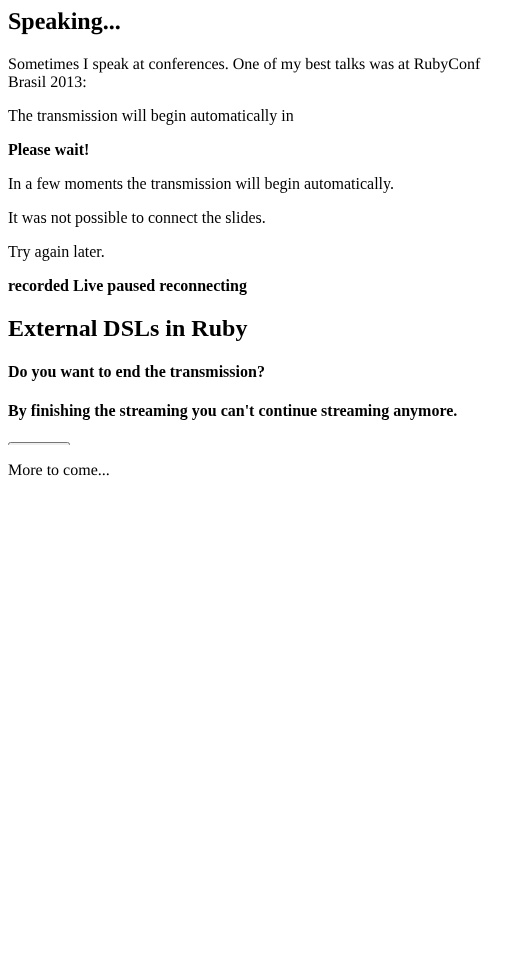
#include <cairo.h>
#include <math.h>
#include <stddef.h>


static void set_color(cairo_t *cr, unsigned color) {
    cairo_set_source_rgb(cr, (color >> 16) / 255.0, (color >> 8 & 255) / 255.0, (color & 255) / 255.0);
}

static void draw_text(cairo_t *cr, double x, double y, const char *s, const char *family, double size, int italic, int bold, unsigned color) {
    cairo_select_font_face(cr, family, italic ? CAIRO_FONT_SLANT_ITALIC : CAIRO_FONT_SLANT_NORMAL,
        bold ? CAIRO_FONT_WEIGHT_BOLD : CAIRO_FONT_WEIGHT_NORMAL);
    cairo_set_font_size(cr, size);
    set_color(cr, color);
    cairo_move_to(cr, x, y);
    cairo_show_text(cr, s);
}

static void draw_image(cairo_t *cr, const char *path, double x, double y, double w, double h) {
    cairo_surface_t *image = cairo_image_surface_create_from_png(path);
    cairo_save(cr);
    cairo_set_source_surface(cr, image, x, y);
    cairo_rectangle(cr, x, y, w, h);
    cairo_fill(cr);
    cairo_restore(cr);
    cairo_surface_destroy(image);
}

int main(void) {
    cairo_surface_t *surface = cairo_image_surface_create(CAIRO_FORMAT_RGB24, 515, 979);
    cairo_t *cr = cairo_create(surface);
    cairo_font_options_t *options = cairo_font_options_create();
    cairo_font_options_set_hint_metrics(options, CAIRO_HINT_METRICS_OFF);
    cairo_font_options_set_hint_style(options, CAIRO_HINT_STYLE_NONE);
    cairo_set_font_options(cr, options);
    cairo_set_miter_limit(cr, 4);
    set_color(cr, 0xFFFFFF);
    cairo_paint(cr);
    draw_text(cr, 8, 29, "Speaking...", "Liberation Serif", 24, 0, 1, 0x000000);
    draw_text(cr, 8, 69, "Sometimes I speak at conferences. One of my best talks was at RubyConf", "Liberation Serif", 16, 0, 0, 0x000000);
    draw_text(cr, 8, 87, "Brasil 2013:", "Liberation Serif", 16, 0, 0, 0x000000);
    draw_image(cr, "assets/img1.png", 8, 109, 449, 336);
    draw_text(cr, 8, 475, "More to come...", "Liberation Serif", 16, 0, 0, 0x000000);
    cairo_surface_write_to_png(surface, "output.png");
    cairo_font_options_destroy(options);
    cairo_destroy(cr);
    cairo_surface_destroy(surface);
    return 0;
}
